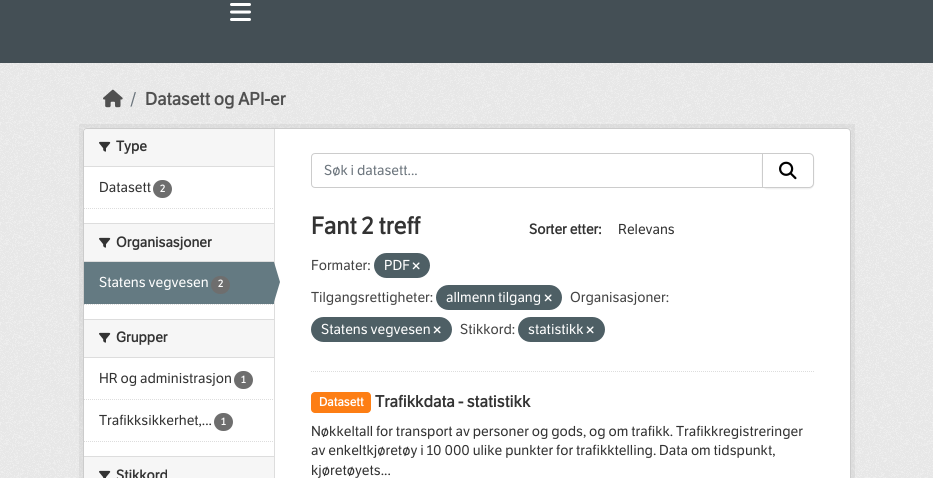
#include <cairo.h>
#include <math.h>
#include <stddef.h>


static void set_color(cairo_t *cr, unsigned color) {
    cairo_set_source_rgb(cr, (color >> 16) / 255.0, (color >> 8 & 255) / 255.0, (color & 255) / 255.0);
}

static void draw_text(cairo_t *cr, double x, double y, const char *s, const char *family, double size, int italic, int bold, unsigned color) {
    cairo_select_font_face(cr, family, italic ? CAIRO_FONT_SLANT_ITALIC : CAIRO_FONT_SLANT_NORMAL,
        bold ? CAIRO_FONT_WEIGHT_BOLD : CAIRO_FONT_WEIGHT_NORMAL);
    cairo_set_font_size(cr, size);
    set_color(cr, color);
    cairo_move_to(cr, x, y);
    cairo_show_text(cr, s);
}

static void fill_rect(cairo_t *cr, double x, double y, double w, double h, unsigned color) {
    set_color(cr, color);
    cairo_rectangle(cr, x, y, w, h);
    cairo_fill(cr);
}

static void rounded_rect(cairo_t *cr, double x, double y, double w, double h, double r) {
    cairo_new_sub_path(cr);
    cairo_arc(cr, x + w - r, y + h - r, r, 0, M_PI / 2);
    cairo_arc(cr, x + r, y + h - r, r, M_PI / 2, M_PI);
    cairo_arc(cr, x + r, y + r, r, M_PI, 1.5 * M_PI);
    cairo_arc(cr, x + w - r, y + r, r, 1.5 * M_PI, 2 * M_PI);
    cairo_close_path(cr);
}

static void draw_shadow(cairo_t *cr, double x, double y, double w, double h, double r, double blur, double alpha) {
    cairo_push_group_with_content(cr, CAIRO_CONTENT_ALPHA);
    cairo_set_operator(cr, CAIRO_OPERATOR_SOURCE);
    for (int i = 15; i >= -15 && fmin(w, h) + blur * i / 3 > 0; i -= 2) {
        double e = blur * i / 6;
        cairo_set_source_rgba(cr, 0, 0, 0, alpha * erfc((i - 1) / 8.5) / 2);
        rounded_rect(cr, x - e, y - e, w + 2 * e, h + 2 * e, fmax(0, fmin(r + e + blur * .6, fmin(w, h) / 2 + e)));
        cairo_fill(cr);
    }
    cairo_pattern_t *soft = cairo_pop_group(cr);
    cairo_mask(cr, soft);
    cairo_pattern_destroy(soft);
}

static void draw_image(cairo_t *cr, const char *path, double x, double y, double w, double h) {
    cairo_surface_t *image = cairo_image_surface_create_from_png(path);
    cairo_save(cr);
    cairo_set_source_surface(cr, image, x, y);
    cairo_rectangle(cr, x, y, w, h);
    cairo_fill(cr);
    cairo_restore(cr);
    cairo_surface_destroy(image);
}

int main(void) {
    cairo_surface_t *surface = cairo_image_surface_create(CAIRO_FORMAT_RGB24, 933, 478);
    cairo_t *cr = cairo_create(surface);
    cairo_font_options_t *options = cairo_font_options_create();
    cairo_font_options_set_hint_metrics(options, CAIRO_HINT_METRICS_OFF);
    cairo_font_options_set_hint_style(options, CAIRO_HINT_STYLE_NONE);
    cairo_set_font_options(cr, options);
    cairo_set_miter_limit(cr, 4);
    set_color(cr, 0x444F55);
    cairo_paint(cr);
    draw_image(cr, "assets/img1.png", 230, 3, 21, 18);
    fill_rect(cr, 0, 63, 933, 415, 0xEEEEEE);
    draw_image(cr, "assets/img2.png", 0, 63, 933, 415);
    draw_image(cr, "assets/img3.png", 103, 89, 20, 19);
    draw_text(cr, 130, 105, "/", "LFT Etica", 17.5, 0, 0, 0x6C757D);
    draw_text(cr, 145, 105, "Datasett og API-er", "LFT Etica", 17.5, 0, 1, 0x505050);
    cairo_rectangle(cr, 81, 126, 772, 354);
    cairo_set_source_rgba(cr, 0, 0, 0, 0.05);
    cairo_set_line_width(cr, 4);
    cairo_stroke(cr);
    set_color(cr, 0xFFFFFF);
    rounded_rect(cr, 83.5, 128.5, 767, 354, 3.5);
    cairo_fill_preserve(cr);
    set_color(cr, 0xCCCCCC);
    cairo_set_line_width(cr, 1);
    cairo_stroke(cr);
    set_color(cr, 0xF6F6F6);
    cairo_new_path(cr);
    cairo_move_to(cr, 87, 129);
    cairo_line_to(cr, 274, 129);
    cairo_line_to(cr, 274, 167);
    cairo_line_to(cr, 84, 167);
    cairo_line_to(cr, 84, 132);
    cairo_curve_to(cr, 84, 130.5, 85.5, 129, 87, 129);
    cairo_close_path(cr);
    cairo_fill(cr);
    fill_rect(cr, 84, 166, 190, 1, 0xDDDDDD);
    draw_image(cr, "assets/img4.png", 99, 141, 12, 11);
    draw_text(cr, 116, 151, "Type", "LFT Etica", 14, 0, 1, 0x333333);
    draw_text(cr, 99, 192, "Datasett", "LFT Etica", 14, 0, 0, 0x333333);
    set_color(cr, 0x6E6E6E);
    rounded_rect(cr, 153, 180, 19, 18, 9);
    cairo_fill(cr);
    draw_text(cr, 160, 192, "2", "LFT Etica", 10, 0, 1, 0xFFFFFF);
    cairo_new_path(cr);
    cairo_move_to(cr, 84, 208.5);
    cairo_line_to(cr, 274, 208.5);
    set_color(cr, 0xDDDDDD);
    cairo_set_dash(cr, (double[]){1, 1}, 2, 0);
    cairo_stroke(cr);
    fill_rect(cr, 84, 224, 190, 37, 0xF6F6F6);
    fill_rect(cr, 84, 223, 190, 1, 0xDDDDDD);
    fill_rect(cr, 84, 261, 190, 1, 0xDDDDDD);
    draw_image(cr, "assets/img4.png", 99, 237, 12, 11);
    draw_text(cr, 116, 247, "Organisasjoner", "LFT Etica", 14, 0, 1, 0x333333);
    fill_rect(cr, 84, 262, 190, 42, 0x647A82);
    draw_text(cr, 99, 287, "Statens vegvesen", "LFT Etica", 14, 0, 0, 0xFFFFFF);
    set_color(cr, 0x6E6E6E);
    rounded_rect(cr, 211, 276, 19, 18, 9);
    cairo_fill(cr);
    draw_text(cr, 218, 287, "2", "LFT Etica", 10, 0, 1, 0xFFFFFF);
    fill_rect(cr, 274, 129, 1, 349, 0xDDDDDD);
    set_color(cr, 0x647A82);
    cairo_new_path(cr);
    cairo_move_to(cr, 274, 302);
    cairo_line_to(cr, 274, 262);
    cairo_line_to(cr, 280, 282);
    cairo_close_path(cr);
    cairo_fill(cr);
    cairo_new_path(cr);
    cairo_move_to(cr, 84, 304.5);
    cairo_line_to(cr, 274, 304.5);
    set_color(cr, 0xDDDDDD);
    cairo_stroke(cr);
    fill_rect(cr, 84, 320, 190, 37, 0xF6F6F6);
    fill_rect(cr, 84, 319, 190, 1, 0xDDDDDD);
    fill_rect(cr, 84, 357, 190, 1, 0xDDDDDD);
    draw_image(cr, "assets/img4.png", 99, 332, 12, 11);
    draw_text(cr, 116, 342, "Grupper", "LFT Etica", 14, 0, 1, 0x333333);
    cairo_new_path(cr);
    cairo_move_to(cr, 84, 399.5);
    cairo_line_to(cr, 274, 399.5);
    set_color(cr, 0xDDDDDD);
    cairo_stroke(cr);
    draw_text(cr, 99, 383, "HR og administrasjon", "LFT Etica", 14, 0, 0, 0x333333);
    set_color(cr, 0x6E6E6E);
    rounded_rect(cr, 234, 371, 19, 18, 9);
    cairo_fill(cr);
    draw_text(cr, 241, 383, "1", "LFT Etica", 10, 0, 1, 0xFFFFFF);
    draw_text(cr, 99, 425, "Trafikksikkerhet,...", "LFT Etica", 14, 0, 0, 0x333333);
    set_color(cr, 0x6E6E6E);
    rounded_rect(cr, 214, 413, 19, 18, 9);
    cairo_fill(cr);
    draw_text(cr, 221, 425, "1", "LFT Etica", 10, 0, 1, 0xFFFFFF);
    cairo_new_path(cr);
    cairo_move_to(cr, 84, 441.5);
    cairo_line_to(cr, 274, 441.5);
    set_color(cr, 0xDDDDDD);
    cairo_stroke(cr);
    fill_rect(cr, 84, 457, 190, 21, 0xF6F6F6);
    fill_rect(cr, 84, 456, 190, 1, 0xDDDDDD);
    draw_image(cr, "assets/img5.png", 99, 470, 12, 8);
    draw_text(cr, 116, 480, "Stikkord", "LFT Etica", 14, 0, 1, 0x333333);
    cairo_new_path(cr);
    cairo_move_to(cr, 311, 371.5);
    cairo_line_to(cr, 814, 371.5);
    set_color(cr, 0xDDDDDD);
    cairo_stroke(cr);
    cairo_new_path(cr);
    cairo_move_to(cr, 315, 153.5);
    cairo_line_to(cr, 762.5, 153.5);
    cairo_line_to(cr, 762.5, 187.5);
    cairo_line_to(cr, 315, 187.5);
    cairo_curve_to(cr, 313, 187.5, 311.5, 186, 311.5, 184);
    cairo_line_to(cr, 311.5, 157);
    cairo_curve_to(cr, 311.5, 155, 313, 153.5, 315, 153.5);
    cairo_close_path(cr);
    set_color(cr, 0xCCCCCC);
    cairo_set_dash(cr, NULL, 0, 0);
    cairo_stroke(cr);
    draw_text(cr, 324, 175, "Søk i datasett...", "LFT Etica", 14, 0, 0, 0x6C757D);
    set_color(cr, 0x000000);
    draw_shadow(cr, 762, 154, 52, 35, 5, 0.5, 0.07);
    set_color(cr, 0xFFFFFF);
    cairo_new_path(cr);
    cairo_move_to(cr, 762.5, 153.5);
    cairo_line_to(cr, 809, 153.5);
    cairo_curve_to(cr, 811.5, 153.5, 813.5, 155.5, 813.5, 158);
    cairo_line_to(cr, 813.5, 183);
    cairo_curve_to(cr, 813.5, 185.5, 811.5, 187.5, 809, 187.5);
    cairo_line_to(cr, 762.5, 187.5);
    cairo_close_path(cr);
    cairo_fill_preserve(cr);
    set_color(cr, 0xCCCCCC);
    cairo_stroke(cr);
    draw_image(cr, "assets/img6.png", 779, 161, 18, 19);
    draw_text(cr, 311, 234, "Fant 2 treff", "LFT Etica", 23.5, 0, 1, 0x333333);
    draw_text(cr, 529, 234, "Sorter etter:", "LFT Etica", 14, 0, 1, 0x333333);
    draw_text(cr, 618, 234, "Relevans", "LFT Etica", 14, 0, 0, 0x333333);
    draw_text(cr, 311, 270, "Formater:", "LFT Etica", 14, 0, 0, 0x444444);
    set_color(cr, 0x4E5F65);
    rounded_rect(cr, 374, 253, 56, 25, 12.5);
    cairo_fill(cr);
    draw_text(cr, 384, 270, "PDF", "LFT Etica", 14, 0, 0, 0xFFFFFF);
    draw_image(cr, "assets/img7.png", 412, 262, 8, 8);
    draw_text(cr, 311, 302, "Tilgangsrettigheter:", "LFT Etica", 14, 0, 0, 0x444444);
    set_color(cr, 0x4E5F65);
    rounded_rect(cr, 436, 285, 126, 25, 12.5);
    cairo_fill(cr);
    draw_text(cr, 446, 302, "allmenn tilgang", "LFT Etica", 14, 0, 0, 0xFFFFFF);
    draw_image(cr, "assets/img7.png", 544, 294, 8, 8);
    draw_text(cr, 570, 302, "Organisasjoner:", "LFT Etica", 14, 0, 0, 0x444444);
    set_color(cr, 0x4E5F65);
    rounded_rect(cr, 311, 317, 141, 25, 12.5);
    cairo_fill(cr);
    draw_text(cr, 321, 334, "Statens vegvesen", "LFT Etica", 14, 0, 0, 0xFFFFFF);
    draw_image(cr, "assets/img7.png", 433, 326, 8, 8);
    draw_text(cr, 460, 334, "Stikkord:", "LFT Etica", 14, 0, 0, 0x444444);
    set_color(cr, 0x4E5F65);
    rounded_rect(cr, 518, 317, 87, 25, 12.5);
    cairo_fill(cr);
    draw_text(cr, 528, 334, "statistikk", "LFT Etica", 14, 0, 0, 0xFFFFFF);
    draw_image(cr, "assets/img7.png", 586, 326, 8, 8);
    set_color(cr, 0xFD7E14);
    rounded_rect(cr, 311, 392, 60, 21, 4);
    cairo_fill(cr);
    draw_text(cr, 319, 406, "Datasett", "LFT Etica", 12, 0, 1, 0xFFFFFF);
    draw_text(cr, 375, 407, "Trafikkdata - statistikk", "LFT Etica", 16, 0, 1, 0x333333);
    draw_text(cr, 311, 436, "Nøkkeltall for transport av personer og gods, og om trafikk. Trafikkregistreringer", "LFT Etica", 14, 0, 0, 0x333333);
    draw_text(cr, 311, 455, "av enkeltkjøretøy i 10 000 ulike punkter for trafikktelling. Data om tidspunkt,", "LFT Etica", 14, 0, 0, 0x333333);
    draw_text(cr, 311, 475, "kjøretøyets...", "LFT Etica", 14, 0, 0, 0x333333);
    cairo_surface_write_to_png(surface, "output.png");
    cairo_font_options_destroy(options);
    cairo_destroy(cr);
    cairo_surface_destroy(surface);
    return 0;
}
